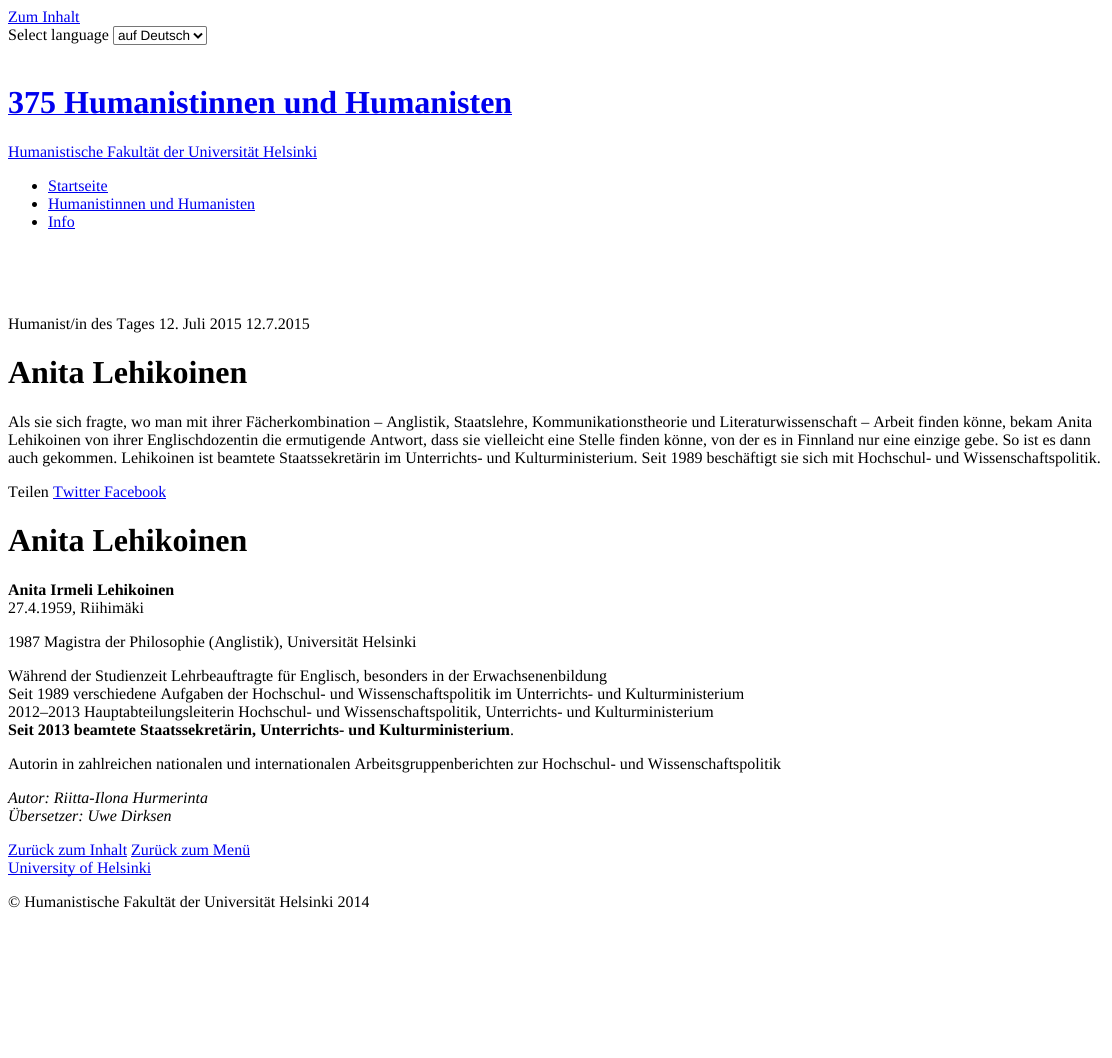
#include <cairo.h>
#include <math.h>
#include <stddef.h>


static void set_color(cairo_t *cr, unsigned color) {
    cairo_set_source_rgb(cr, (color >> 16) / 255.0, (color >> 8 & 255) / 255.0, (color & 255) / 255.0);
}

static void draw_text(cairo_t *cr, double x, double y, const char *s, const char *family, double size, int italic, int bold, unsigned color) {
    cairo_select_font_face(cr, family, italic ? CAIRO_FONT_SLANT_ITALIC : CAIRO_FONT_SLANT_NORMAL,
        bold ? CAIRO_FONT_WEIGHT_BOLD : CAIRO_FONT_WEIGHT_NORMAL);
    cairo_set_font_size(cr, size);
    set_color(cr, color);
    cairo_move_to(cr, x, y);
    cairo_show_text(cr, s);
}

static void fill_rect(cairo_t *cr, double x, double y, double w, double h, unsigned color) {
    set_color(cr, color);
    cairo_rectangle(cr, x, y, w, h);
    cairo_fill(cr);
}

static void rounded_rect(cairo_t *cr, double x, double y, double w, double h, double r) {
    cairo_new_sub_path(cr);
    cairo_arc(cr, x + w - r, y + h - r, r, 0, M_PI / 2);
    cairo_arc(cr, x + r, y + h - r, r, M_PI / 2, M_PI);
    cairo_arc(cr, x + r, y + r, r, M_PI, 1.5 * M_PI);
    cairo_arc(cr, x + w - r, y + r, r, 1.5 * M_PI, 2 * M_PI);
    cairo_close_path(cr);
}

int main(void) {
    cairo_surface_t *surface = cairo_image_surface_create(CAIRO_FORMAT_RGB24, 1112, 1058);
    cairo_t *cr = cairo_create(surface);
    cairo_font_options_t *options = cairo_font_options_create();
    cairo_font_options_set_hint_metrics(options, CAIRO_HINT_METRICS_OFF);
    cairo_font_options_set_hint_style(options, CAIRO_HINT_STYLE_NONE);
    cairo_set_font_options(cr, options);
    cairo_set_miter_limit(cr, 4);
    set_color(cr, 0xFFFFFF);
    cairo_paint(cr);
    draw_text(cr, 8, 22, "Zum Inhalt", "Liberation Serif", 16, 0, 0, 0x0000EE);
    fill_rect(cr, 8, 23, 72, 1, 0x0000EE);
    draw_text(cr, 8, 40, "Select language", "Liberation Serif", 16, 0, 0, 0x000000);
    rounded_rect(cr, 113.5, 26.5, 93, 18, 1.5);
    set_color(cr, 0x767676);
    cairo_set_line_width(cr, 1);
    cairo_stroke(cr);
    cairo_new_path(cr);
    cairo_move_to(cr, 194, 33.5);
    cairo_line_to(cr, 198, 37.5);
    cairo_line_to(cr, 202, 33.5);
    set_color(cr, 0x000000);
    cairo_set_line_width(cr, 2);
    cairo_stroke(cr);
    draw_text(cr, 118, 40, "auf Deutsch", "Liberation Sans", 13.5, 0, 0, 0x000000);
    draw_text(cr, 8, 113, "375 Humanistinnen und Humanisten", "Liberation Serif", 32, 0, 1, 0x0000EE);
    fill_rect(cr, 8, 114, 504, 1, 0x0000EE);
    draw_text(cr, 8, 157, "Humanistische Fakultät der Universität Helsinki", "Liberation Serif", 16, 0, 0, 0x0000EE);
    fill_rect(cr, 8, 158, 309, 1, 0x0000EE);
    set_color(cr, 0x000000);
    cairo_new_path(cr);
    cairo_arc(cr, 34.5, 186.5, 2.5, 0, 2 * M_PI);
    cairo_fill(cr);
    draw_text(cr, 48, 191, "Startseite", "Liberation Serif", 16, 0, 0, 0x0000EE);
    fill_rect(cr, 48, 192, 60, 1, 0x0000EE);
    set_color(cr, 0x000000);
    cairo_new_path(cr);
    cairo_arc(cr, 34.5, 204.5, 2.5, 0, 2 * M_PI);
    cairo_fill(cr);
    draw_text(cr, 48, 209, "Humanistinnen und Humanisten", "Liberation Serif", 16, 0, 0, 0x0000EE);
    fill_rect(cr, 48, 210, 207, 1, 0x0000EE);
    set_color(cr, 0x000000);
    cairo_new_path(cr);
    cairo_arc(cr, 34.5, 222.5, 2.5, 0, 2 * M_PI);
    cairo_fill(cr);
    draw_text(cr, 48, 227, "Info", "Liberation Serif", 16, 0, 0, 0x0000EE);
    fill_rect(cr, 48, 228, 27, 1, 0x0000EE);
    draw_text(cr, 8, 329, "Humanist/in des Tages 12. Juli 2015 12.7.2015", "Liberation Serif", 16, 0, 0, 0x000000);
    draw_text(cr, 8, 383, "Anita Lehikoinen", "Liberation Serif", 32, 0, 1, 0x000000);
    draw_text(cr, 8, 427, "Als sie sich fragte, wo man mit ihrer Fächerkombination – Anglistik, Staatslehre, Kommunikationstheorie und Literaturwissenschaft – Arbeit finden könne, bekam Anita", "Liberation Serif", 16, 0, 0, 0x000000);
    draw_text(cr, 8, 445, "Lehikoinen von ihrer Englischdozentin die ermutigende Antwort, dass sie vielleicht eine Stelle finden könne, von der es in Finnland nur eine einzige gebe. So ist es dann", "Liberation Serif", 16, 0, 0, 0x000000);
    draw_text(cr, 8, 463, "auch gekommen. Lehikoinen ist beamtete Staatssekretärin im Unterrichts- und Kulturministerium. Seit 1989 beschäftigt sie sich mit Hochschul- und Wissenschaftspolitik.", "Liberation Serif", 16, 0, 0, 0x000000);
    draw_text(cr, 8, 497, "Teilen", "Liberation Serif", 16, 0, 0, 0x000000);
    draw_text(cr, 53, 497, "Twitter Facebook", "Liberation Serif", 16, 0, 0, 0x0000EE);
    fill_rect(cr, 53, 498, 113, 1, 0x0000EE);
    draw_text(cr, 8, 551, "Anita Lehikoinen", "Liberation Serif", 32, 0, 1, 0x000000);
    draw_text(cr, 8, 595, "Anita Irmeli Lehikoinen", "Liberation Serif", 16, 0, 1, 0x000000);
    draw_text(cr, 8, 613, "27.4.1959, Riihimäki", "Liberation Serif", 16, 0, 0, 0x000000);
    draw_text(cr, 8, 647, "1987 Magistra der Philosophie (Anglistik), Universität Helsinki", "Liberation Serif", 16, 0, 0, 0x000000);
    draw_text(cr, 8, 681, "Während der Studienzeit Lehrbeauftragte für Englisch, besonders in der Erwachsenenbildung", "Liberation Serif", 16, 0, 0, 0x000000);
    draw_text(cr, 8, 699, "Seit 1989 verschiedene Aufgaben der Hochschul- und Wissenschaftspolitik im Unterrichts- und Kulturministerium", "Liberation Serif", 16, 0, 0, 0x000000);
    draw_text(cr, 8, 717, "2012–2013 Hauptabteilungsleiterin Hochschul- und Wissenschaftspolitik, Unterrichts- und Kulturministerium", "Liberation Serif", 16, 0, 0, 0x000000);
    draw_text(cr, 8, 735, "Seit 2013 beamtete Staatssekretärin, Unterrichts- und Kulturministerium", "Liberation Serif", 16, 0, 1, 0x000000);
    draw_text(cr, 510, 735, ".", "Liberation Serif", 16, 0, 0, 0x000000);
    draw_text(cr, 8, 769, "Autorin in zahlreichen nationalen und internationalen Arbeitsgruppenberichten zur Hochschul- und Wissenschaftspolitik", "Liberation Serif", 16, 0, 0, 0x000000);
    draw_text(cr, 8, 803, "Autor: Riitta-Ilona Hurmerinta", "Liberation Serif", 16, 1, 0, 0x000000);
    draw_text(cr, 8, 821, "Übersetzer: Uwe Dirksen", "Liberation Serif", 16, 1, 0, 0x000000);
    draw_text(cr, 8, 855, "Zurück zum Inhalt Zurück zum Menü", "Liberation Serif", 16, 0, 0, 0x0000EE);
    fill_rect(cr, 8, 856, 119, 1, 0x0000EE);
    fill_rect(cr, 131, 856, 119, 1, 0x0000EE);
    fill_rect(cr, 8, 874, 143, 1, 0x0000EE);
    draw_text(cr, 8, 873, "University of Helsinki", "Liberation Serif", 16, 0, 0, 0x0000EE);
    draw_text(cr, 8, 907, "© Humanistische Fakultät der Universität Helsinki 2014", "Liberation Serif", 16, 0, 0, 0x000000);
    cairo_surface_write_to_png(surface, "output.png");
    cairo_font_options_destroy(options);
    cairo_destroy(cr);
    cairo_surface_destroy(surface);
    return 0;
}
